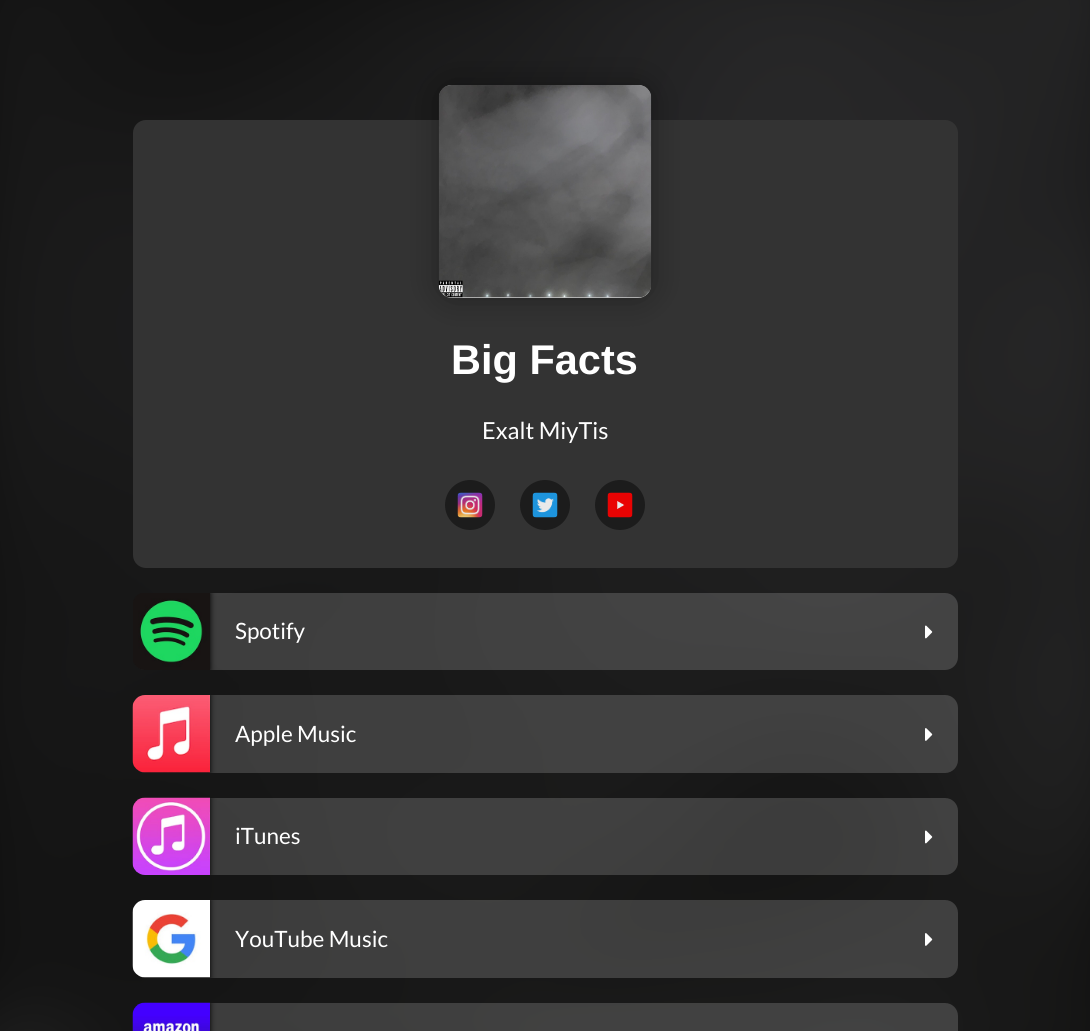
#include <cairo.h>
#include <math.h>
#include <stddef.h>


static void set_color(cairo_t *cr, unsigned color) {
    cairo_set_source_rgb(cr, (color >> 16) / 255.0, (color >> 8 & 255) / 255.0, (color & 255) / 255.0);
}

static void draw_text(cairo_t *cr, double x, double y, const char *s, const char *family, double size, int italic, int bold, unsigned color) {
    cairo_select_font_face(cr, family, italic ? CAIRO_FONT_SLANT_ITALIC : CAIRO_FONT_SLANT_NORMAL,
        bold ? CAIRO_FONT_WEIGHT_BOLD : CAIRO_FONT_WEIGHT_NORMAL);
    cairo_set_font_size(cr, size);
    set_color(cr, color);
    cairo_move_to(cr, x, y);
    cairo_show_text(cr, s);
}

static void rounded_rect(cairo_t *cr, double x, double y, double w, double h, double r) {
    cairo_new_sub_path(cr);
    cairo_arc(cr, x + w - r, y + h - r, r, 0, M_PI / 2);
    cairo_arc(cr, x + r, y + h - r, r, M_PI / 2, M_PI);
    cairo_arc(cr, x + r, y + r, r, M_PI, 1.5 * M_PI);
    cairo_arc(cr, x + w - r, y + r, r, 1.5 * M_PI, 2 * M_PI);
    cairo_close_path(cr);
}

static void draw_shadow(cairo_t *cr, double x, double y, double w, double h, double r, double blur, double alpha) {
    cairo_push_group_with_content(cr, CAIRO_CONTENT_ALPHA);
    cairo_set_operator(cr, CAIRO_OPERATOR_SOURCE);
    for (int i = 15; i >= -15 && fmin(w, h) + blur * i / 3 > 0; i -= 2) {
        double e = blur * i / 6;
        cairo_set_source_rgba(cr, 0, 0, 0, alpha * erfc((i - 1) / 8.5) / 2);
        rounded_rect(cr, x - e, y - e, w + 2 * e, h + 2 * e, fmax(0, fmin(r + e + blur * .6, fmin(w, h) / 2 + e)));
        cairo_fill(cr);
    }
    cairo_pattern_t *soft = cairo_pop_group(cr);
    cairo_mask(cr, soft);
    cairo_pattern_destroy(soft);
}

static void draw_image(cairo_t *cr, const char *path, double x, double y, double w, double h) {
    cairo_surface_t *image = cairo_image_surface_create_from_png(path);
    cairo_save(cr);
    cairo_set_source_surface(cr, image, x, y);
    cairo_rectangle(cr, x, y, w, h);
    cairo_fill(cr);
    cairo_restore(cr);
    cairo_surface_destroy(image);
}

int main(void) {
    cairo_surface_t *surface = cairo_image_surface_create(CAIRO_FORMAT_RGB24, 1090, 1031);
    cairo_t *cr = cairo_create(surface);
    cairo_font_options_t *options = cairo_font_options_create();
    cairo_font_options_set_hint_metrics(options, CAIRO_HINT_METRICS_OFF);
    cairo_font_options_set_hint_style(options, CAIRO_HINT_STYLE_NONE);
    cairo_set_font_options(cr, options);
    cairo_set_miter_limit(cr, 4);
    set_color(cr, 0x000000);
    cairo_paint(cr);
    draw_image(cr, "assets/img1.png", 0, 0, 1090, 1031);
    set_color(cr, 0x333333);
    rounded_rect(cr, 133, 120, 825, 448, 13);
    cairo_fill(cr);
    set_color(cr, 0x000000);
    draw_shadow(cr, 439, 85, 212, 213, 13, 15.5, 0.35);
    set_color(cr, 0xCCCCCC);
    rounded_rect(cr, 439, 85, 212, 213, 13);
    cairo_fill(cr);
    draw_image(cr, "assets/img2.png", 438, 85, 214, 213);
    draw_text(cr, 451, 374, "Big Facts", "Liberation Sans", 41.5, 0, 1, 0xFFFFFF);
    draw_text(cr, 482, 439, "Exalt MiyTis", "Lato", 23.5, 0, 0, 0xFFFFFF);
    set_color(cr, 0x1C1C1C);
    cairo_new_path(cr);
    cairo_arc(cr, 470, 505, 25, 0, 2 * M_PI);
    cairo_fill(cr);
    draw_image(cr, "assets/img3.png", 457, 492, 26, 26);
    cairo_arc(cr, 545, 505, 25, 0, 2 * M_PI);
    cairo_fill(cr);
    draw_image(cr, "assets/img4.png", 532, 492, 26, 26);
    cairo_arc(cr, 620, 505, 25, 0, 2 * M_PI);
    cairo_fill(cr);
    draw_image(cr, "assets/img5.png", 607, 492, 26, 26);
    cairo_set_source_rgba(cr, 1, 1, 1, 0.17);
    rounded_rect(cr, 133, 593, 825, 77, 13);
    cairo_fill(cr);
    cairo_save(cr);
    rounded_rect(cr, 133, 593, 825, 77, 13);
    cairo_clip(cr);
    set_color(cr, 0x000000);
    draw_shadow(cr, 133, 593, 77, 77, 0, 3, 1);
    cairo_restore(cr);
    draw_image(cr, "assets/img6.png", 133, 593, 77, 77);
    draw_text(cr, 235, 639, "Spotify", "Lato", 22.5, 0, 0, 0xFFFFFF);
    draw_image(cr, "assets/img7.png", 925, 625, 8, 14);
    cairo_set_source_rgba(cr, 1, 1, 1, 0.17);
    rounded_rect(cr, 133, 695, 825, 78, 13);
    cairo_fill(cr);
    cairo_save(cr);
    rounded_rect(cr, 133, 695, 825, 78, 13);
    cairo_clip(cr);
    set_color(cr, 0x000000);
    draw_shadow(cr, 133, 695, 77, 78, 0, 3, 1);
    cairo_restore(cr);
    draw_image(cr, "assets/img8.png", 132, 695, 78, 78);
    draw_text(cr, 235, 742, "Apple Music", "Lato", 22.5, 0, 0, 0xFFFFFF);
    draw_image(cr, "assets/img9.png", 925, 728, 8, 13);
    cairo_set_source_rgba(cr, 1, 1, 1, 0.17);
    rounded_rect(cr, 133, 798, 825, 77, 13);
    cairo_fill(cr);
    cairo_save(cr);
    rounded_rect(cr, 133, 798, 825, 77, 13);
    cairo_clip(cr);
    set_color(cr, 0x000000);
    draw_shadow(cr, 133, 798, 77, 77, 0, 3, 1);
    cairo_restore(cr);
    draw_image(cr, "assets/img10.png", 132, 797, 78, 78);
    draw_text(cr, 235, 844, "iTunes", "Lato", 22.5, 0, 0, 0xFFFFFF);
    draw_image(cr, "assets/img11.png", 925, 830, 8, 14);
    cairo_set_source_rgba(cr, 1, 1, 1, 0.17);
    rounded_rect(cr, 133, 900, 825, 78, 13);
    cairo_fill(cr);
    cairo_save(cr);
    rounded_rect(cr, 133, 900, 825, 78, 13);
    cairo_clip(cr);
    set_color(cr, 0x000000);
    draw_shadow(cr, 133, 900, 77, 78, 0, 3, 1);
    cairo_restore(cr);
    draw_image(cr, "assets/img12.png", 132, 900, 78, 78);
    draw_text(cr, 235, 947, "YouTube Music", "Lato", 22.5, 0, 0, 0xFFFFFF);
    draw_image(cr, "assets/img13.png", 925, 933, 8, 13);
    cairo_set_source_rgba(cr, 1, 1, 1, 0.17);
    rounded_rect(cr, 133, 1003, 825, 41, 13);
    cairo_fill(cr);
    cairo_save(cr);
    rounded_rect(cr, 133, 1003, 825, 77, 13);
    cairo_clip(cr);
    set_color(cr, 0x000000);
    draw_shadow(cr, 133, 1003, 77, 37, 0, 3, 1);
    cairo_restore(cr);
    draw_image(cr, "assets/img14.png", 132, 1002, 78, 29);
    cairo_surface_write_to_png(surface, "output.png");
    cairo_font_options_destroy(options);
    cairo_destroy(cr);
    cairo_surface_destroy(surface);
    return 0;
}
